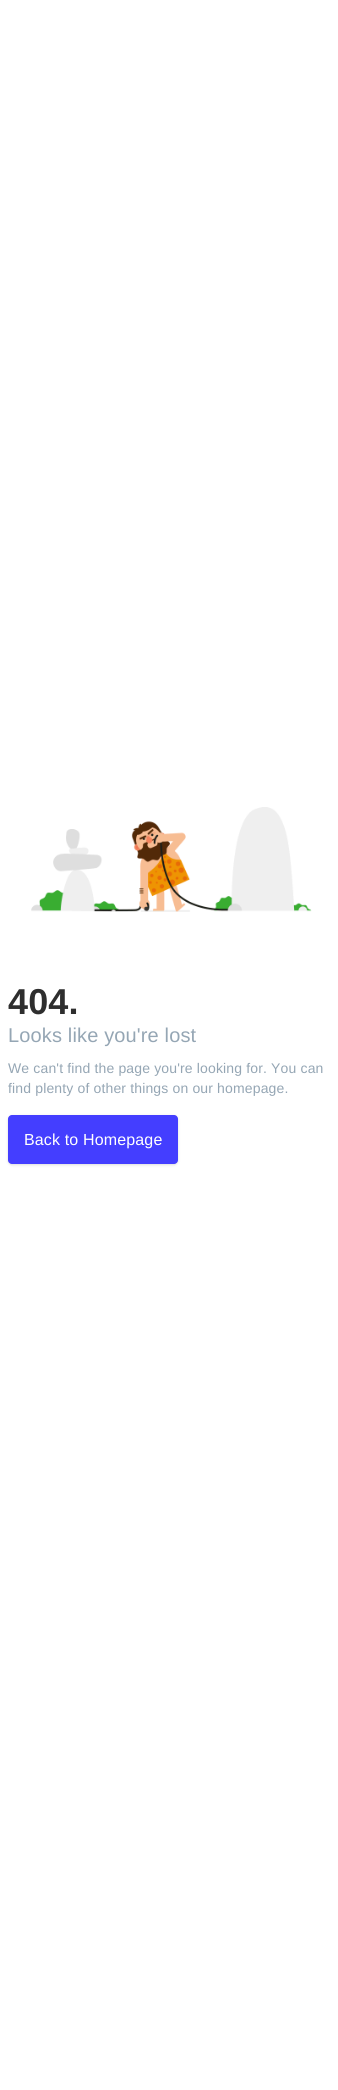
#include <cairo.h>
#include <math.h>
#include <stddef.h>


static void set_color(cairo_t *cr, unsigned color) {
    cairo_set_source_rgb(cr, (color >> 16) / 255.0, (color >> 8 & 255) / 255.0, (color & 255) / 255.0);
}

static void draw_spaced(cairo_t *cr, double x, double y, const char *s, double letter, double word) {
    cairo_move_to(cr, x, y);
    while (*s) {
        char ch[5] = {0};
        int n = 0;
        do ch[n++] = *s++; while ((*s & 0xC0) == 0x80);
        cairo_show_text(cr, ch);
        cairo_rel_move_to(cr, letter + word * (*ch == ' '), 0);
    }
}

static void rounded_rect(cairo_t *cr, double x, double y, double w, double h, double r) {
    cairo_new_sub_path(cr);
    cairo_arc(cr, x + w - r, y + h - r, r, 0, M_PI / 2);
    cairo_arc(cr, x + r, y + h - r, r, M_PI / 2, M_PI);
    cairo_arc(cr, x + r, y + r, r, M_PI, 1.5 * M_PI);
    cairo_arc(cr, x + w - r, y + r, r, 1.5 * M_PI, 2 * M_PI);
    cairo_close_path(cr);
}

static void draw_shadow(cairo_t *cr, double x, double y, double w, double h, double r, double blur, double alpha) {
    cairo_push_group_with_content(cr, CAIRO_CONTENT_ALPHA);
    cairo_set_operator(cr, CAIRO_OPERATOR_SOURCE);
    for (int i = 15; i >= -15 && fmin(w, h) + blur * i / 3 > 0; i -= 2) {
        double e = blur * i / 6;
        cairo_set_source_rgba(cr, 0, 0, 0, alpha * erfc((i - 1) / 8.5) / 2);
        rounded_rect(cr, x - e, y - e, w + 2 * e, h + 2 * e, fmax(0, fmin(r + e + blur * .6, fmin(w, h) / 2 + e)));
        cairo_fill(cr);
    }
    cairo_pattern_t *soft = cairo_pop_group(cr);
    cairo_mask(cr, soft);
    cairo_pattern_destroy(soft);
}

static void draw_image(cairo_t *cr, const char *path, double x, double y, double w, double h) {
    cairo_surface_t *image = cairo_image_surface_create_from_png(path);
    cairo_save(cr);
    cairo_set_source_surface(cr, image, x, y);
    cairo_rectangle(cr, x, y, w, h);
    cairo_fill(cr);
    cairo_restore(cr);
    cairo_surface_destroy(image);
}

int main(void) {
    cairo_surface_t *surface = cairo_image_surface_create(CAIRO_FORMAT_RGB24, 338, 2090);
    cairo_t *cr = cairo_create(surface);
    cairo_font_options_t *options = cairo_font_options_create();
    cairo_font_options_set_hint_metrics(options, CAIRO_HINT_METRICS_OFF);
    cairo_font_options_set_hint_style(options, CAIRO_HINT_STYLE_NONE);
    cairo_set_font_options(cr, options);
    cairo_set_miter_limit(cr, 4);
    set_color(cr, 0xFFFFFF);
    cairo_paint(cr);
    draw_image(cr, "assets/img1.png", 31, 807, 281, 105);
    cairo_select_font_face(cr, "Liberation Sans", CAIRO_FONT_SLANT_NORMAL, CAIRO_FONT_WEIGHT_BOLD);
    cairo_set_font_size(cr, 36);
    set_color(cr, 0x2E2E2E);
    draw_spaced(cr, 8, 1014, "404.", 0.15, 0);
    cairo_select_font_face(cr, "Liberation Sans", CAIRO_FONT_SLANT_NORMAL, CAIRO_FONT_WEIGHT_NORMAL);
    cairo_set_font_size(cr, 20);
    set_color(cr, 0x95A6B4);
    draw_spaced(cr, 8, 1042, "Looks like you're lost", 0.15, 0);
    cairo_set_font_size(cr, 14);
    draw_spaced(cr, 8, 1073, "We can't find the page you're looking for. You can", 0.15, 0);
    draw_spaced(cr, 8, 1093, "find plenty of other things on our homepage.", 0.15, 0);
    set_color(cr, 0x000000);
    draw_shadow(cr, 9, 1117, 168, 47, 3, 1, 0.1);
    draw_shadow(cr, 8, 1116, 170, 49, 4, 1.5, 0.1);
    set_color(cr, 0x443EFF);
    rounded_rect(cr, 8, 1115, 170, 49, 4);
    cairo_fill(cr);
    cairo_set_font_size(cr, 16);
    set_color(cr, 0xFFFFFF);
    draw_spaced(cr, 24, 1145, "Back to Homepage", 0.15, 0);
    cairo_surface_write_to_png(surface, "output.png");
    cairo_font_options_destroy(options);
    cairo_destroy(cr);
    cairo_surface_destroy(surface);
    return 0;
}
